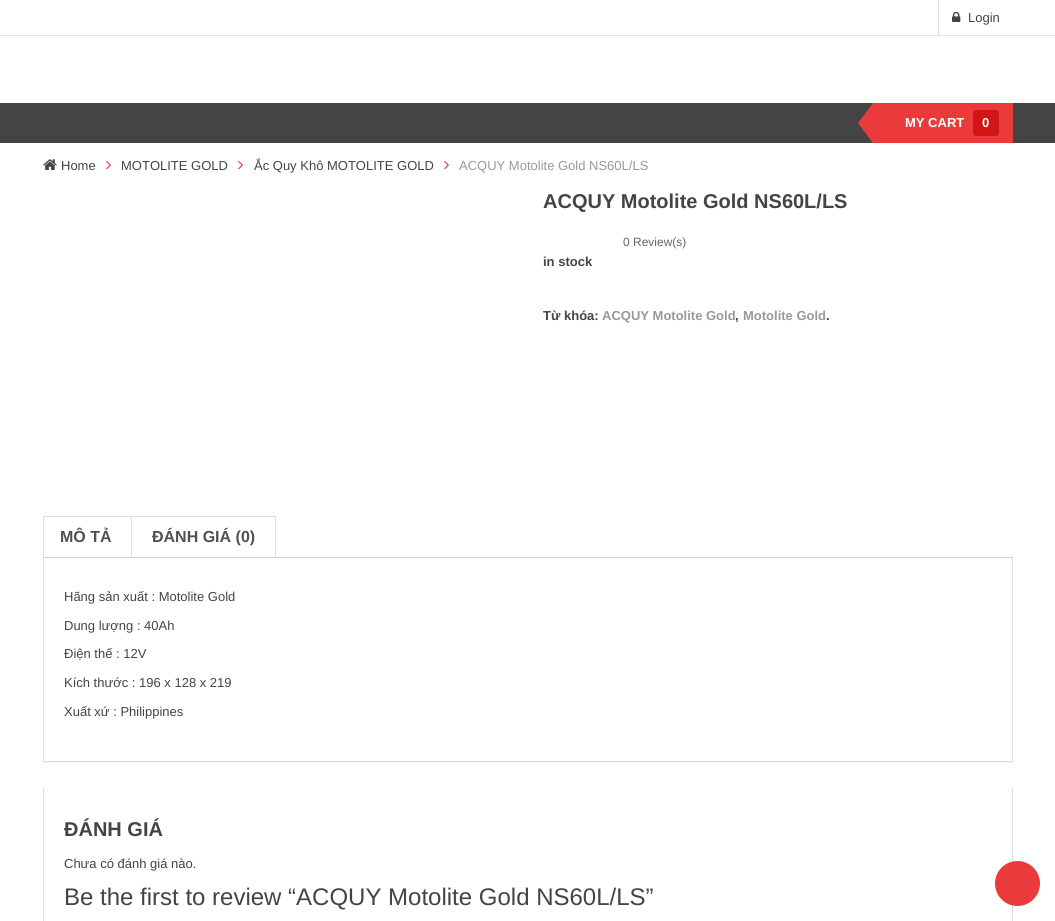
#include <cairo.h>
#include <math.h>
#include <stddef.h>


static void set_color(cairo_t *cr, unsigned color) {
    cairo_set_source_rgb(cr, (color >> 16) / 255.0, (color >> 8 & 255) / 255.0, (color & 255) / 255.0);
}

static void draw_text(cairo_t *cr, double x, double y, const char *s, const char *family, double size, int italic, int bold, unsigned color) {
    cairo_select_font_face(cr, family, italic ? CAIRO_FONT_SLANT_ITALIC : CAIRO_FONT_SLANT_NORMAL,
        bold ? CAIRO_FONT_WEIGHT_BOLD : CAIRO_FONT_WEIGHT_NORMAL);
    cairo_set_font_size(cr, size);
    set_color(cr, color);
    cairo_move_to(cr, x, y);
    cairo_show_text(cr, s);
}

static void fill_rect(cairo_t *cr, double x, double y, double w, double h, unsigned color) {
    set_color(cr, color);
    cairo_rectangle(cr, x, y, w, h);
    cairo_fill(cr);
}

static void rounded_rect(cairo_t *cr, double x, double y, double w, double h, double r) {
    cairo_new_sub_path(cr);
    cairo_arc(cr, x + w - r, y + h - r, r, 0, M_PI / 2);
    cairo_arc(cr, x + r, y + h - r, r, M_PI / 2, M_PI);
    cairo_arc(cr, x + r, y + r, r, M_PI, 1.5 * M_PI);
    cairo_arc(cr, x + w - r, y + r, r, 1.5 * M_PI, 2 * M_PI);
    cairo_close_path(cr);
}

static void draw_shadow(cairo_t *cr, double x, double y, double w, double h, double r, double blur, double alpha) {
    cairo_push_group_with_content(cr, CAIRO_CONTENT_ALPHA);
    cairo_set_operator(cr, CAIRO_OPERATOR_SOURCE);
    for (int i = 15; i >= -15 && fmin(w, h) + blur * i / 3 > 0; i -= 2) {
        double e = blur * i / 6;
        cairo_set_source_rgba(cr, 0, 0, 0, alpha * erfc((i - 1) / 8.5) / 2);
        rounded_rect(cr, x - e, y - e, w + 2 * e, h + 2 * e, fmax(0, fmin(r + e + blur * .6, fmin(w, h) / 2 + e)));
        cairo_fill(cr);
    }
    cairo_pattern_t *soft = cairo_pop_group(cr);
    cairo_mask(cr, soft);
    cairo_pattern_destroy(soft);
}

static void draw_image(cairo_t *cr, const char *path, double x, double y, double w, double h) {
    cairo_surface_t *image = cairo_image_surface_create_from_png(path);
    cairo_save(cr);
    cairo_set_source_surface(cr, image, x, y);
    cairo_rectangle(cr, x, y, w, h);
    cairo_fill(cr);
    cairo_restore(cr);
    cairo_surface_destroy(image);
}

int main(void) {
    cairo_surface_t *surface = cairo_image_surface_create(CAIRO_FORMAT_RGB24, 1055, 921);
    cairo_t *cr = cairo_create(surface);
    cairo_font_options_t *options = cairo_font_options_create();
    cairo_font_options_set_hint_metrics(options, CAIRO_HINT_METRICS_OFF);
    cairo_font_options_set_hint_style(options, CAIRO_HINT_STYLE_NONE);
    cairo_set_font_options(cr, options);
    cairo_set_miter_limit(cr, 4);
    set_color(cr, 0xFFFFFF);
    cairo_paint(cr);
    fill_rect(cr, 0, 35, 1055, 1, 0xE3E3E3);
    fill_rect(cr, 938, 0, 1, 35, 0xDDDDDD);
    draw_image(cr, "assets/img1.png", 952, 11, 9, 11);
    draw_text(cr, 968, 22, "Login", "Liberation Sans", 13, 0, 0, 0x444444);
    fill_rect(cr, 0, 103, 1055, 40, 0x444444);
    fill_rect(cr, 873, 103, 140, 40, 0xEA3A3C);
    cairo_new_path(cr);
    cairo_move_to(cr, 873, 103);
    cairo_line_to(cr, 873, 143);
    cairo_line_to(cr, 858, 123);
    cairo_close_path(cr);
    cairo_fill(cr);
    draw_text(cr, 905, 127, "MY CART", "Liberation Sans", 13, 0, 1, 0xFFFFFF);
    set_color(cr, 0xD11618);
    rounded_rect(cr, 973, 110, 26, 26, 3);
    cairo_fill(cr);
    draw_text(cr, 982, 127, "0", "Liberation Sans", 13, 0, 1, 0xFFFFFF);
    draw_image(cr, "assets/img2.png", 43, 159, 14, 11);
    draw_text(cr, 61, 170, "Home", "Liberation Sans", 13, 0, 0, 0x444444);
    draw_image(cr, "assets/img3.png", 106, 161, 5, 9);
    draw_text(cr, 121, 170, "MOTOLITE GOLD", "Liberation Sans", 13, 0, 0, 0x444444);
    draw_image(cr, "assets/img3.png", 238, 161, 5, 9);
    draw_text(cr, 254, 170, "Ắc Quy Khô MOTOLITE GOLD", "Liberation Sans", 13, 0, 0, 0x444444);
    draw_image(cr, "assets/img3.png", 444, 161, 5, 9);
    draw_text(cr, 459, 170, "ACQUY Motolite Gold NS60L/LS", "Liberation Sans", 13, 0, 0, 0x999999);
    draw_text(cr, 543, 208, "ACQUY Motolite Gold NS60L/LS", "Liberation Sans", 20, 0, 1, 0x444444);
    draw_text(cr, 623, 246, "0 Review(s)", "Liberation Sans", 12, 0, 0, 0x666666);
    draw_text(cr, 543, 266, "in stock", "Liberation Sans", 13, 0, 1, 0x444444);
    draw_text(cr, 543, 320, "Từ khóa:", "Liberation Sans", 13, 0, 1, 0x444444);
    draw_text(cr, 602, 320, "ACQUY Motolite Gold", "Liberation Sans", 13, 0, 1, 0x999999);
    draw_text(cr, 735, 320, ",", "Liberation Sans", 13, 0, 1, 0x444444);
    draw_text(cr, 743, 320, "Motolite Gold", "Liberation Sans", 13, 0, 1, 0x999999);
    draw_text(cr, 826, 320, ".", "Liberation Sans", 13, 0, 1, 0x444444);
    fill_rect(cr, 44, 516, 88, 1, 0xDDDDDD);
    cairo_save(cr);
    cairo_rectangle(cr, 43, 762, 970, 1);
    cairo_clip(cr);
    set_color(cr, 0x000000);
    draw_shadow(cr, 43, 559, 970, 204, 0, 0.5, 0.05);
    cairo_restore(cr);
    fill_rect(cr, 131, 516, 1, 42, 0xDDDDDD);
    draw_text(cr, 60, 542, "MÔ TẢ", "Liberation Sans", 16, 0, 1, 0x515151);
    fill_rect(cr, 131, 516, 145, 1, 0xDDDDDD);
    fill_rect(cr, 275, 516, 1, 42, 0xDDDDDD);
    draw_text(cr, 152, 542, "ĐÁNH GIÁ (0)", "Liberation Sans", 16, 0, 1, 0x515151);
    fill_rect(cr, 44, 557, 969, 1, 0xD3CED2);
    fill_rect(cr, 1012, 558, 1, 204, 0xDDDDDD);
    fill_rect(cr, 43, 761, 970, 1, 0xDDDDDD);
    fill_rect(cr, 43, 516, 1, 246, 0xDDDDDD);
    draw_text(cr, 64, 601, "Hãng sản xuất : Motolite Gold", "Liberation Sans", 13, 0, 0, 0x444444);
    draw_text(cr, 64, 630, "Dung lượng : 40Ah", "Liberation Sans", 13, 0, 0, 0x444444);
    draw_text(cr, 64, 658, "Điện thế : 12V", "Liberation Sans", 13, 0, 0, 0x444444);
    draw_text(cr, 64, 687, "Kích thước : 196 x 128 x 219", "Liberation Sans", 13, 0, 0, 0x444444);
    draw_text(cr, 64, 716, "Xuất xứ : Philippines", "Liberation Sans", 13, 0, 0, 0x444444);
    fill_rect(cr, 1012, 788, 1, 133, 0xDDDDDD);
    fill_rect(cr, 43, 788, 1, 133, 0xDDDDDD);
    draw_text(cr, 64, 836, "ĐÁNH GIÁ", "Liberation Sans", 20, 0, 1, 0x444444);
    draw_text(cr, 64, 868, "Chưa có đánh giá nào.", "Liberation Sans", 13, 0, 0, 0x444444);
    draw_text(cr, 64, 905, "Be the first to review “ACQUY Motolite Gold NS60L/LS”", "Liberation Sans", 24, 0, 0, 0x444444);
    set_color(cr, 0xEA3A3C);
    cairo_new_path(cr);
    cairo_arc(cr, 1017.5, 883.5, 22.5, 0, 2 * M_PI);
    cairo_fill(cr);
    cairo_surface_write_to_png(surface, "output.png");
    cairo_font_options_destroy(options);
    cairo_destroy(cr);
    cairo_surface_destroy(surface);
    return 0;
}
